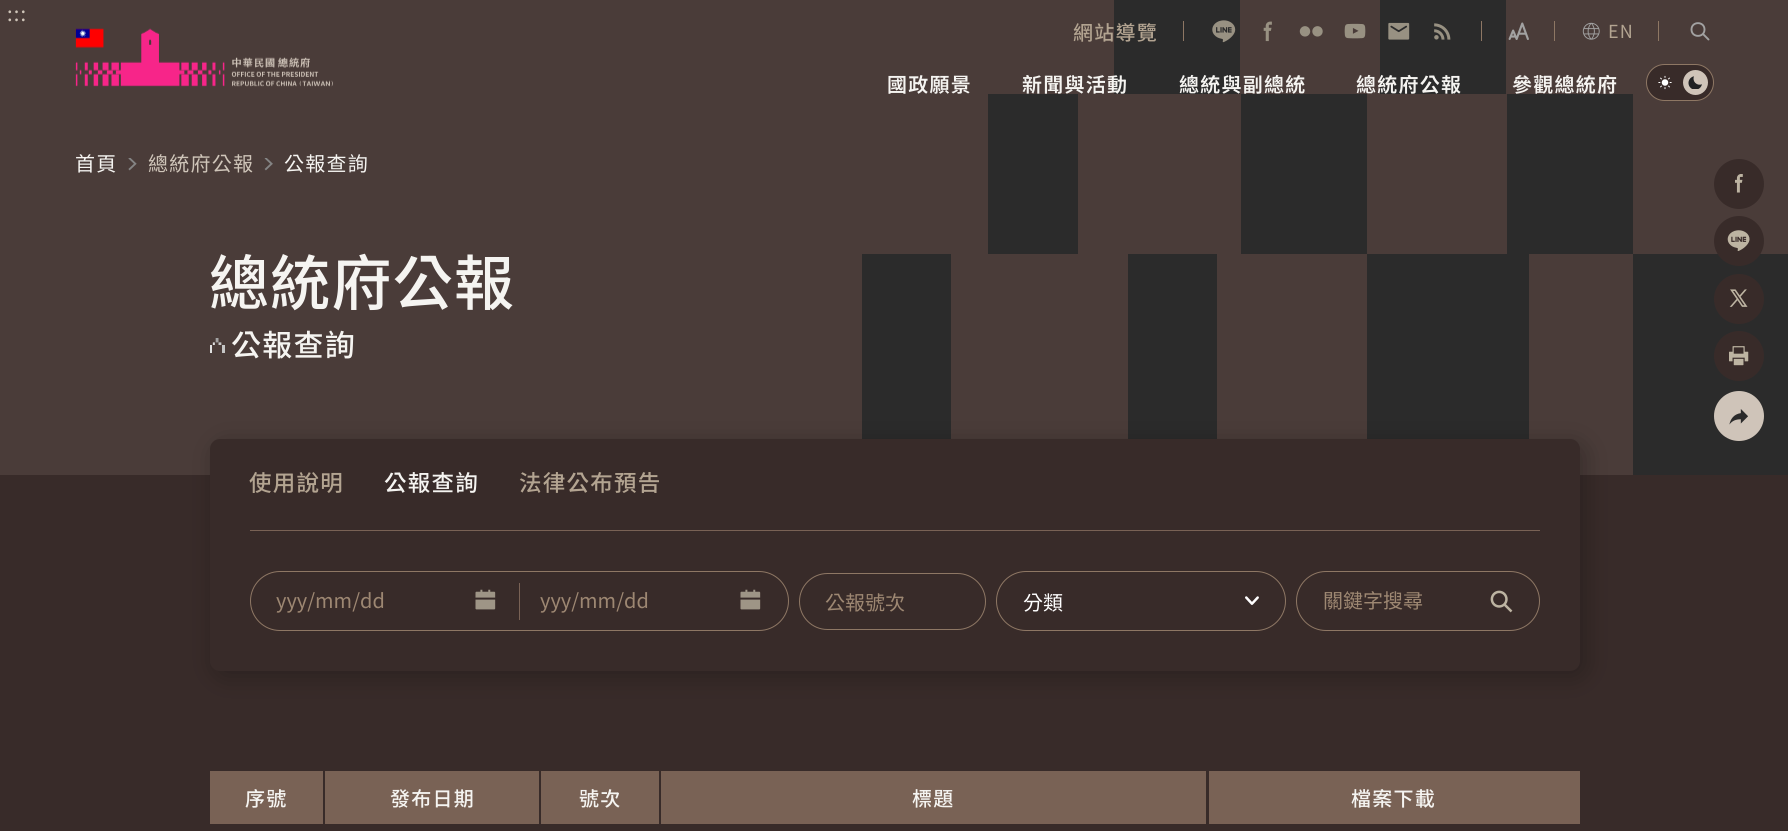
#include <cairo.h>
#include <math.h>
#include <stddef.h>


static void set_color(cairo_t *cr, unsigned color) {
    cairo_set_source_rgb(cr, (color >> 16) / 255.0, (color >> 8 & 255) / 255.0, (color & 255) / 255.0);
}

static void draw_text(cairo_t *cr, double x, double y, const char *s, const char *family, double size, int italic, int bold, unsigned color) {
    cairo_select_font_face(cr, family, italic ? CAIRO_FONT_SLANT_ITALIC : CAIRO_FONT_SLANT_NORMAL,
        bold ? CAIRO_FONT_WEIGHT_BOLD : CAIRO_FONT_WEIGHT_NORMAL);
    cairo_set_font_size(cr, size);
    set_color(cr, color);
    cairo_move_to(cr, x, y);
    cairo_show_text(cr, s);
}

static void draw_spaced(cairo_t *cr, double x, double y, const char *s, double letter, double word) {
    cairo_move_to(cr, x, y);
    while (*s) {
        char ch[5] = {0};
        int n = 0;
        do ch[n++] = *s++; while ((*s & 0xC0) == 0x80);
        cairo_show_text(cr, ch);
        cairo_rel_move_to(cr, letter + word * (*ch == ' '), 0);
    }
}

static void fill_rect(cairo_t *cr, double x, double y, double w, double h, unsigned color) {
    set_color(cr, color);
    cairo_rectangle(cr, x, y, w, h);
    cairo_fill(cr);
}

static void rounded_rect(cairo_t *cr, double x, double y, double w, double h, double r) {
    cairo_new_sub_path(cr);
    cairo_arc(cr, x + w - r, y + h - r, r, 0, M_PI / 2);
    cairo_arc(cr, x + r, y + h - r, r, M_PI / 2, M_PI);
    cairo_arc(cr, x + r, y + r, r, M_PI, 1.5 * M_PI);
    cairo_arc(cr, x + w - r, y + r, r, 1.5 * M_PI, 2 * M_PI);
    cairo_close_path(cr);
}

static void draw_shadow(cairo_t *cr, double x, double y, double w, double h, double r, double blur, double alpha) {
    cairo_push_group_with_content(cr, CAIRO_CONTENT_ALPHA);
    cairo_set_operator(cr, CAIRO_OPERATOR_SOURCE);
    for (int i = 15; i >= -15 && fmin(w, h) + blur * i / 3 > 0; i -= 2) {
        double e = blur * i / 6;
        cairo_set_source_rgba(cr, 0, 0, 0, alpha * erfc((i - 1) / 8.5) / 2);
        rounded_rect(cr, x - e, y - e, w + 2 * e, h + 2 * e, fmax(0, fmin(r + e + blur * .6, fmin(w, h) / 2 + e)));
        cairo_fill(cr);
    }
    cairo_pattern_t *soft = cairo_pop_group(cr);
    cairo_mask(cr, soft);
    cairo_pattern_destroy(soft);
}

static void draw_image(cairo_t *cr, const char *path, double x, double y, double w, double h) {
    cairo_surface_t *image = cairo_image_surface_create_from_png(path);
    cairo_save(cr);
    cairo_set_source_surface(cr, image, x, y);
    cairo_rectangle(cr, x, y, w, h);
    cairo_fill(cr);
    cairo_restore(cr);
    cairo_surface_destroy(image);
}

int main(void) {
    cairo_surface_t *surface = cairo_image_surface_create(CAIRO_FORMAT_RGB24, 1788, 831);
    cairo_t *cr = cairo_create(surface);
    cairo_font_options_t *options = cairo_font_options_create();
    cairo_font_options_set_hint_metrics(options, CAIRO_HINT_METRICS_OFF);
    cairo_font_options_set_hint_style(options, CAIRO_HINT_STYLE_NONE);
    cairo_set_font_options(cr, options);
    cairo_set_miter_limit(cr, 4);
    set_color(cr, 0x382B29);
    cairo_paint(cr);
    fill_rect(cr, 0, 0, 1788, 475, 0x4A3C39);
    cairo_select_font_face(cr, "Noto Sans TC", CAIRO_FONT_SLANT_NORMAL, CAIRO_FONT_WEIGHT_NORMAL);
    cairo_set_font_size(cr, 20);
    set_color(cr, 0xCFC5B9);
    draw_spaced(cr, 7, 21, ":::", 1.25, 0);
    draw_image(cr, "assets/img1.png", 75, 28, 258, 59);
    fill_rect(cr, 1114, 0, 126, 94, 0x2B2B2B);
    cairo_select_font_face(cr, "Noto Sans TC Medium", CAIRO_FONT_SLANT_NORMAL, CAIRO_FONT_WEIGHT_NORMAL);
    set_color(cr, 0xB3A491);
    draw_spaced(cr, 1073, 40, "網站導覽", 1.25, 0);
    fill_rect(cr, 1183, 21, 1, 20, 0x8E7764);
    draw_image(cr, "assets/img2.png", 1212, 20, 24, 23);
    draw_image(cr, "assets/img3.png", 1263, 21, 9, 21);
    draw_image(cr, "assets/img4.png", 1299, 26, 24, 11);
    draw_image(cr, "assets/img5.png", 1344, 23, 22, 16);
    fill_rect(cr, 1380, 0, 126, 94, 0x2B2B2B);
    draw_image(cr, "assets/img6.png", 1388, 22, 22, 18);
    draw_image(cr, "assets/img7.png", 1434, 23, 17, 17);
    fill_rect(cr, 1481, 21, 1, 20, 0x8E7764);
    draw_image(cr, "assets/img8.png", 1508, 22, 21, 18);
    fill_rect(cr, 1554, 21, 1, 20, 0x8E7764);
    draw_image(cr, "assets/img9.png", 1582, 22, 18, 18);
    cairo_select_font_face(cr, "Noto Sans TC", CAIRO_FONT_SLANT_NORMAL, CAIRO_FONT_WEIGHT_NORMAL);
    cairo_set_font_size(cr, 18);
    set_color(cr, 0xB3A491);
    draw_spaced(cr, 1608, 38, "EN", 1.25, 0);
    fill_rect(cr, 1658, 21, 1, 20, 0x8E7764);
    cairo_new_path(cr);
    cairo_move_to(cr, 1708.5, 39.5);
    cairo_line_to(cr, 1703, 34);
    cairo_move_to(cr, 1691.5, 29.5);
    cairo_curve_to(cr, 1691.5, 38, 1704.5, 38, 1704.5, 29.5);
    cairo_curve_to(cr, 1704.5, 21, 1691.5, 21, 1691.5, 29.5);
    cairo_close_path(cr);
    set_color(cr, 0xA2A2A2);
    cairo_set_line_width(cr, 1.9);
    cairo_set_line_cap(cr, CAIRO_LINE_CAP_ROUND);
    cairo_set_line_join(cr, CAIRO_LINE_JOIN_ROUND);
    cairo_stroke(cr);
    cairo_select_font_face(cr, "Noto Sans TC SemiBold", CAIRO_FONT_SLANT_NORMAL, CAIRO_FONT_WEIGHT_NORMAL);
    cairo_set_font_size(cr, 20);
    set_color(cr, 0xF5F4F1);
    draw_spaced(cr, 887, 92, "國政願景", 1.25, 0);
    draw_spaced(cr, 1022, 92, "新聞與活動", 1.25, 0);
    draw_spaced(cr, 1179, 92, "總統與副總統", 1.25, 0);
    draw_spaced(cr, 1356, 92, "總統府公報", 1.25, 0);
    draw_spaced(cr, 1512, 92, "參觀總統府", 1.25, 0);
    cairo_save(cr);
    cairo_rectangle(cr, 0, 0, 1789, 475);
    cairo_clip(cr);
    set_color(cr, 0x2B2B2B);
    cairo_new_path(cr);
    cairo_move_to(cr, 1507, 254);
    cairo_line_to(cr, 1367, 254);
    cairo_line_to(cr, 1367, 94);
    cairo_line_to(cr, 1241, 94);
    cairo_line_to(cr, 1241, 254);
    cairo_line_to(cr, 1367, 254);
    cairo_line_to(cr, 1367, 713);
    cairo_line_to(cr, 1529, 713);
    cairo_line_to(cr, 1529, 254);
    cairo_line_to(cr, 1633, 254);
    cairo_line_to(cr, 1633, 713);
    cairo_line_to(cr, 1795, 713);
    cairo_line_to(cr, 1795, 254);
    cairo_line_to(cr, 1633, 254);
    cairo_line_to(cr, 1633, 94);
    cairo_line_to(cr, 1507, 94);
    cairo_close_path(cr);
    cairo_fill(cr);
    cairo_restore(cr);
    set_color(cr, 0x382B29);
    rounded_rect(cr, 1646.5, 64.5, 67, 36, 18);
    cairo_fill_preserve(cr);
    set_color(cr, 0x8E7764);
    cairo_set_line_width(cr, 1);
    cairo_set_line_cap(cr, CAIRO_LINE_CAP_BUTT);
    cairo_set_line_join(cr, CAIRO_LINE_JOIN_MITER);
    cairo_stroke(cr);
    draw_image(cr, "assets/img10.png", 1658, 75, 14, 15);
    set_color(cr, 0xCFC4B9);
    cairo_arc(cr, 1695.5, 82.5, 12.5, 0, 2 * M_PI);
    cairo_fill(cr);
    draw_image(cr, "assets/img11.png", 1688, 76, 14, 13);
    fill_rect(cr, 862, 254, 89, 185, 0x2B2B2B);
    fill_rect(cr, 988, 94, 90, 160, 0x2B2B2B);
    fill_rect(cr, 1128, 254, 89, 185, 0x2B2B2B);
    cairo_select_font_face(cr, "Noto Sans TC", CAIRO_FONT_SLANT_NORMAL, CAIRO_FONT_WEIGHT_NORMAL);
    set_color(cr, 0xF5F4F1);
    draw_spaced(cr, 75, 171, "首頁", 1.25, 0);
    draw_image(cr, "assets/img12.png", 128, 158, 9, 13);
    set_color(cr, 0xCFC5B9);
    draw_spaced(cr, 148, 171, "總統府公報", 1.25, 0);
    draw_image(cr, "assets/img13.png", 264, 158, 9, 13);
    set_color(cr, 0xF5F4F1);
    draw_spaced(cr, 284, 171, "公報查詢", 1.25, 0);
    cairo_select_font_face(cr, "Noto Sans TC Medium", CAIRO_FONT_SLANT_NORMAL, CAIRO_FONT_WEIGHT_NORMAL);
    cairo_set_font_size(cr, 60);
    draw_spaced(cr, 209, 305, "總統府公報", 1.25, 0);
    set_color(cr, 0x382B29);
    cairo_new_path(cr);
    cairo_arc(cr, 1739, 184, 25, 0, 2 * M_PI);
    cairo_fill(cr);
    draw_image(cr, "assets/img14.png", 1735, 174, 8, 19);
    cairo_arc(cr, 1739, 241, 25, 0, 2 * M_PI);
    cairo_fill(cr);
    draw_image(cr, "assets/img15.png", 1727, 230, 23, 21);
    cairo_arc(cr, 1739, 299, 25, 0, 2 * M_PI);
    cairo_fill(cr);
    draw_image(cr, "assets/img16.png", 1729, 289, 19, 18);
    cairo_arc(cr, 1739, 356, 25, 0, 2 * M_PI);
    cairo_fill(cr);
    draw_image(cr, "assets/img17.png", 1729, 346, 20, 20);
    set_color(cr, 0xCFC4B9);
    cairo_arc(cr, 1739, 416, 25, 0, 2 * M_PI);
    cairo_fill(cr);
    draw_image(cr, "assets/img18.png", 1729, 409, 19, 16);
    draw_image(cr, "assets/img19.png", 210, 338, 15, 15);
    cairo_set_font_size(cr, 30);
    set_color(cr, 0xF5F4F1);
    draw_spaced(cr, 231, 356, "公報查詢", 1.25, 0);
    set_color(cr, 0x000000);
    draw_shadow(cr, 215, 444, 1370, 232, 10, 12.5, 0.25);
    set_color(cr, 0x382B29);
    rounded_rect(cr, 210, 439, 1370, 232, 10);
    cairo_fill(cr);
    cairo_set_font_size(cr, 22.5);
    set_color(cr, 0xB3A491);
    draw_spaced(cr, 249, 491, "使用說明", 1.25, 0);
    set_color(cr, 0xF5F4F1);
    draw_spaced(cr, 384, 491, "公報查詢", 1.25, 0);
    set_color(cr, 0xB3A491);
    draw_spaced(cr, 519, 491, "法律公布預告", 1.25, 0);
    fill_rect(cr, 250, 530, 1290, 1, 0x796255);
    rounded_rect(cr, 250.5, 571.5, 538, 59, 29.5);
    set_color(cr, 0x8E7764);
    cairo_stroke(cr);
    draw_text(cr, 276, 608, "yyy/mm/dd", "Noto Sans TC", 20, 0, 0, 0x9D8772);
    draw_image(cr, "assets/img20.png", 475, 589, 21, 21);
    fill_rect(cr, 519, 583, 1, 37, 0x796255);
    draw_text(cr, 540, 608, "yyy/mm/dd", "Noto Sans TC", 20, 0, 0, 0x9D8772);
    draw_image(cr, "assets/img20.png", 740, 589, 21, 21);
    rounded_rect(cr, 799.5, 573.5, 186, 56, 28);
    set_color(cr, 0x8E7764);
    cairo_stroke(cr);
    draw_text(cr, 825, 610, "公報號次", "Noto Sans TC", 20, 0, 0, 0x9D8772);
    draw_image(cr, "assets/img21.png", 1245, 596, 14, 9);
    rounded_rect(cr, 996.5, 571.5, 289, 59, 29.5);
    set_color(cr, 0x8E7764);
    cairo_stroke(cr);
    draw_text(cr, 1023, 610, "分類", "Noto Sans TC", 20, 0, 0, 0xFFFFFF);
    rounded_rect(cr, 1296.5, 571.5, 243, 59, 29.5);
    set_color(cr, 0x8E7764);
    cairo_stroke(cr);
    draw_text(cr, 1323, 608, "關鍵字搜尋", "Noto Sans TC", 20, 0, 0, 0x9D8772);
    draw_image(cr, "assets/img22.png", 1490, 590, 23, 23);
    fill_rect(cr, 210, 771, 113, 53, 0x796255);
    cairo_select_font_face(cr, "Noto Sans TC Medium", CAIRO_FONT_SLANT_NORMAL, CAIRO_FONT_WEIGHT_NORMAL);
    set_color(cr, 0xF5F4F1);
    draw_spaced(cr, 245, 806, "序號", 1.25, 0);
    fill_rect(cr, 325, 771, 214, 53, 0x796255);
    set_color(cr, 0xF5F4F1);
    draw_spaced(cr, 390, 806, "發布日期", 1.25, 0);
    fill_rect(cr, 541, 771, 118, 53, 0x796255);
    set_color(cr, 0xF5F4F1);
    draw_spaced(cr, 579, 806, "號次", 1.25, 0);
    fill_rect(cr, 661, 771, 545, 53, 0x796255);
    set_color(cr, 0xF5F4F1);
    draw_spaced(cr, 912, 806, "標題", 1.25, 0);
    fill_rect(cr, 1209, 771, 371, 53, 0x796255);
    set_color(cr, 0xF5F4F1);
    draw_spaced(cr, 1351, 806, "檔案下載", 1.25, 0);
    cairo_surface_write_to_png(surface, "output.png");
    cairo_font_options_destroy(options);
    cairo_destroy(cr);
    cairo_surface_destroy(surface);
    return 0;
}
